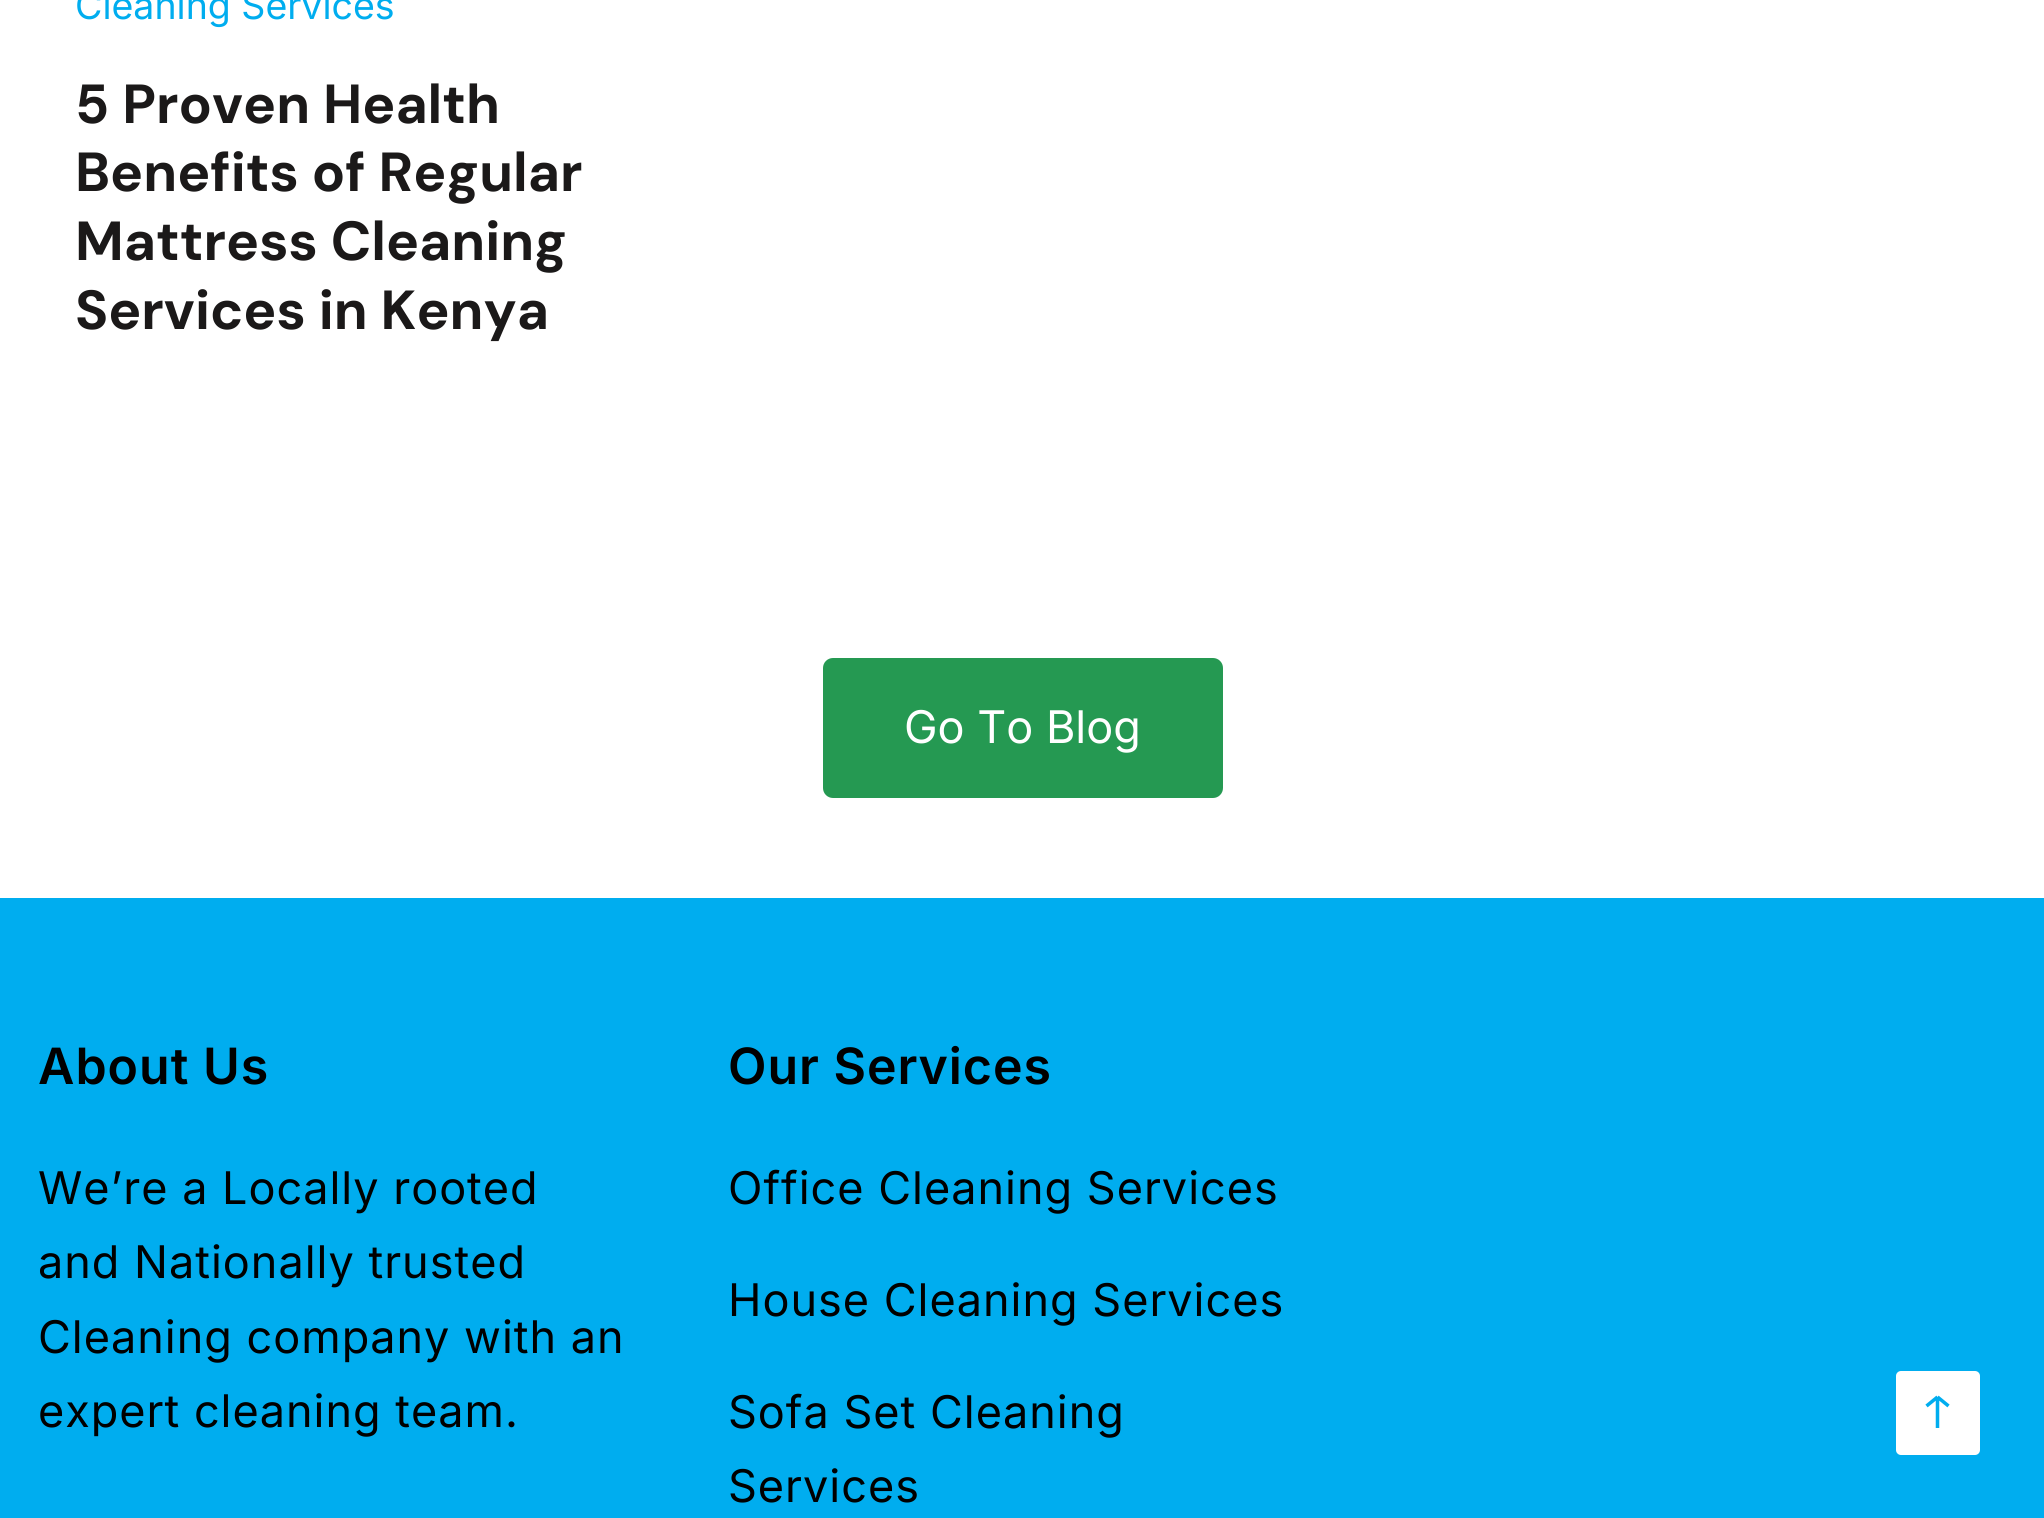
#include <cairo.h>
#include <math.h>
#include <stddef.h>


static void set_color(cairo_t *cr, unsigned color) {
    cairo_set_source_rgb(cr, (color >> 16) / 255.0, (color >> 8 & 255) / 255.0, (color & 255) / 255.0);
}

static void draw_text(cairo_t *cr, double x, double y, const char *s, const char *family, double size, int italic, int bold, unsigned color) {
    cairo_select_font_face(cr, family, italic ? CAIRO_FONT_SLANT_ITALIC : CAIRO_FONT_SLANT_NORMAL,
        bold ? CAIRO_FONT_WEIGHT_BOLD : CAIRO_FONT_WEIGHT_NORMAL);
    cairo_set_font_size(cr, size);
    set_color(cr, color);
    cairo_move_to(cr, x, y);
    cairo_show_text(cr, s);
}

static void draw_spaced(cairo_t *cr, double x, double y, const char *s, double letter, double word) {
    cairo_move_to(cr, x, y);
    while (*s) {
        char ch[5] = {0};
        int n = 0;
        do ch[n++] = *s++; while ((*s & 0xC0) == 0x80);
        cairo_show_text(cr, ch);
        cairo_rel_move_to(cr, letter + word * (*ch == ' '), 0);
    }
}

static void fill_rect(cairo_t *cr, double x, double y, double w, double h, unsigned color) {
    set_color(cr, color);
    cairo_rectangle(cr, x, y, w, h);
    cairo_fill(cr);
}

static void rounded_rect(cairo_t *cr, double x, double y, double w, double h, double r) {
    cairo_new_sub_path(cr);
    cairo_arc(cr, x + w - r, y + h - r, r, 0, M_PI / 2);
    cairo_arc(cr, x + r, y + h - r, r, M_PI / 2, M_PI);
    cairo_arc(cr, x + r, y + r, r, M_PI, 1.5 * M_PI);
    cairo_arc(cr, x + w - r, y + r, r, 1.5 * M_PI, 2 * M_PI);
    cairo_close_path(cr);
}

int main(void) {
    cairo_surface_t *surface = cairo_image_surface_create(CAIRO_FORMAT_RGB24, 2044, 1518);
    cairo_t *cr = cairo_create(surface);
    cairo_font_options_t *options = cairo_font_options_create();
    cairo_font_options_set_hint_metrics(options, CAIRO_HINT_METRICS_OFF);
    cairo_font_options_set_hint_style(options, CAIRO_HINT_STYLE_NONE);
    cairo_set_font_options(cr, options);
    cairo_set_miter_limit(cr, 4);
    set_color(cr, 0xFFFFFF);
    cairo_paint(cr);
    draw_text(cr, 75, 19, "Cleaning Services", "Inter", 37.5, 0, 0, 0x00ADEF);
    draw_text(cr, 75, 123, "5 Proven Health", "DM Sans", 55, 0, 1, 0x1B1919);
    draw_text(cr, 75, 191, "Benefits of Regular", "DM Sans", 55, 0, 1, 0x1B1919);
    draw_text(cr, 75, 260, "Mattress Cleaning", "DM Sans", 55, 0, 1, 0x1B1919);
    draw_text(cr, 75, 329, "Services in Kenya", "DM Sans", 55, 0, 1, 0x1B1919);
    set_color(cr, 0x259952);
    rounded_rect(cr, 824.5, 659.5, 397, 137, 8.5);
    cairo_fill_preserve(cr);
    cairo_set_line_width(cr, 3);
    cairo_stroke(cr);
    draw_text(cr, 904, 743, "Go To Blog", "Inter", 45, 0, 0, 0xFFFFFF);
    fill_rect(cr, 0, 898, 2044, 620, 0x00ADEF);
    cairo_select_font_face(cr, "Inter SemiBold", CAIRO_FONT_SLANT_NORMAL, CAIRO_FONT_WEIGHT_NORMAL);
    cairo_set_font_size(cr, 50);
    set_color(cr, 0x000000);
    draw_spaced(cr, 38, 1084, "About Us", 1, 0);
    cairo_select_font_face(cr, "Inter", CAIRO_FONT_SLANT_NORMAL, CAIRO_FONT_WEIGHT_NORMAL);
    cairo_set_font_size(cr, 45);
    draw_spaced(cr, 38, 1204, "We’re a Locally rooted", 1, 0);
    draw_spaced(cr, 38, 1278, "and Nationally trusted", 1, 0);
    draw_spaced(cr, 38, 1353, "Cleaning company with an", 1, 0);
    draw_spaced(cr, 38, 1427, "expert cleaning team.", 1, 0);
    cairo_select_font_face(cr, "Inter SemiBold", CAIRO_FONT_SLANT_NORMAL, CAIRO_FONT_WEIGHT_NORMAL);
    cairo_set_font_size(cr, 50);
    draw_spaced(cr, 728, 1084, "Our Services", 1, 0);
    cairo_select_font_face(cr, "Inter", CAIRO_FONT_SLANT_NORMAL, CAIRO_FONT_WEIGHT_NORMAL);
    cairo_set_font_size(cr, 45);
    draw_spaced(cr, 728, 1204, "Office Cleaning Services", 1, 0);
    draw_spaced(cr, 728, 1316, "House Cleaning Services", 1, 0);
    draw_spaced(cr, 728, 1428, "Sofa Set Cleaning", 1, 0);
    draw_spaced(cr, 728, 1502, "Services", 1, 0);
    set_color(cr, 0xFFFFFF);
    rounded_rect(cr, 1894.5, 1369.5, 87, 87, 6.5);
    cairo_fill_preserve(cr);
    set_color(cr, 0x00ADEF);
    cairo_stroke(cr);
    cairo_new_path(cr);
    cairo_move_to(cr, 1926.5, 1406);
    cairo_line_to(cr, 1937.5, 1397);
    cairo_move_to(cr, 1937.5, 1397);
    cairo_line_to(cr, 1948.5, 1406);
    cairo_move_to(cr, 1937.5, 1397);
    cairo_line_to(cr, 1937.5, 1428);
    cairo_set_line_width(cr, 3.5);
    cairo_stroke(cr);
    cairo_surface_write_to_png(surface, "output.png");
    cairo_font_options_destroy(options);
    cairo_destroy(cr);
    cairo_surface_destroy(surface);
    return 0;
}
